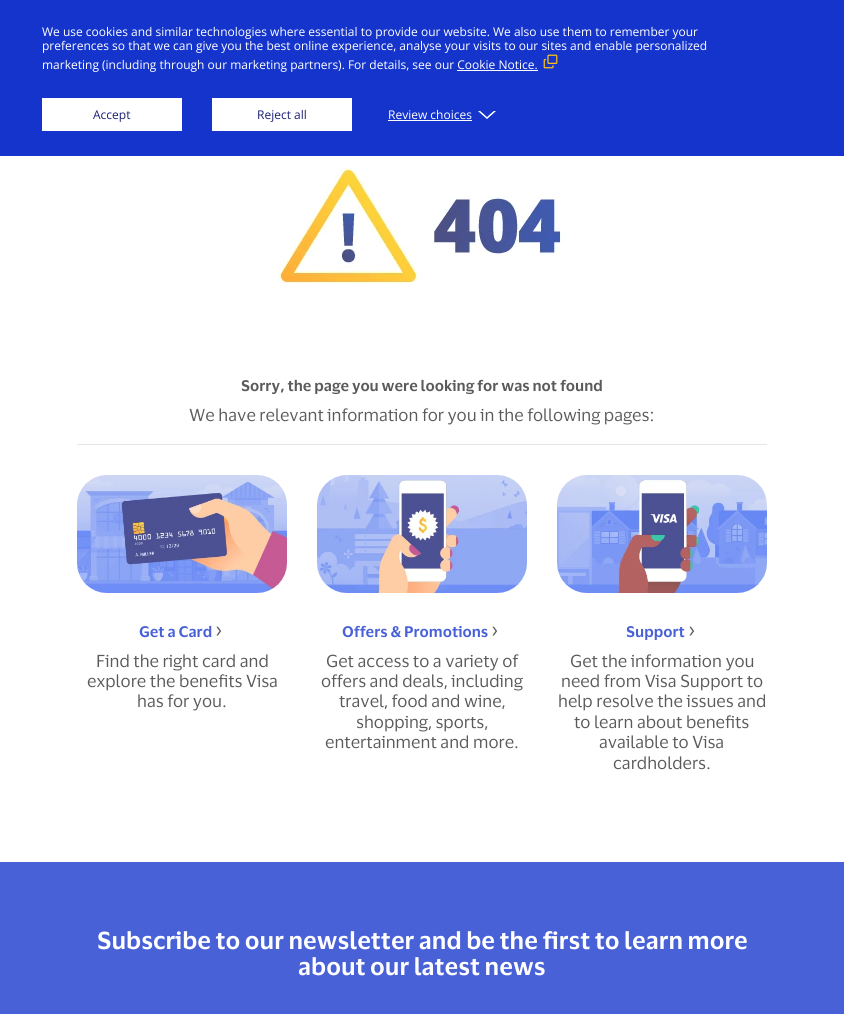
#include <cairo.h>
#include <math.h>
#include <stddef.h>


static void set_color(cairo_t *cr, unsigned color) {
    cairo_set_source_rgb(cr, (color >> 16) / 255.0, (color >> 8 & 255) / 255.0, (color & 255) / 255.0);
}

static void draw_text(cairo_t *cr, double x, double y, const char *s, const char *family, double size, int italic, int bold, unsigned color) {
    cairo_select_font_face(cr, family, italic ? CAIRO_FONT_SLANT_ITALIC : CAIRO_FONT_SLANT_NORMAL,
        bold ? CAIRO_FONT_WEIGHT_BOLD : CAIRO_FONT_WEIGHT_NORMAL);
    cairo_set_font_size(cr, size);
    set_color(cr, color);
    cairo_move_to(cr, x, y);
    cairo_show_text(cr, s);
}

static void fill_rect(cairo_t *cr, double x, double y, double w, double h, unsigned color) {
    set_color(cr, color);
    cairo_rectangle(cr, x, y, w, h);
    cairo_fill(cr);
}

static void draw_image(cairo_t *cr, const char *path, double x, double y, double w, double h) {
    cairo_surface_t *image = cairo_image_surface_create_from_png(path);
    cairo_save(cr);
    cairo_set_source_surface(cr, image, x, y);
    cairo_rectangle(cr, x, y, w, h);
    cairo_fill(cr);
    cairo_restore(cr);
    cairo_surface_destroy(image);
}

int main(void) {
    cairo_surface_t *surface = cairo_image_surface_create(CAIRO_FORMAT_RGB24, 844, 1014);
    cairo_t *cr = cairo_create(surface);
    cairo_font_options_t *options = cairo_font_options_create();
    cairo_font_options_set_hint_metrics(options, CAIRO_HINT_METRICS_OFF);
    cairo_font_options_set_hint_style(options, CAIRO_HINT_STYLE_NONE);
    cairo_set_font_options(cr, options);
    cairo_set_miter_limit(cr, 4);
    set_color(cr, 0xFFFFFF);
    cairo_paint(cr);
    fill_rect(cr, 0, 0, 844, 156, 0x1434CB);
    draw_text(cr, 42, 36, "We use cookies and similar technologies where essential to provide our website. We also use them to remember your", "Open Sans", 12, 0, 0, 0xFFFFFF);
    draw_text(cr, 42, 50, "preferences so that we can give you the best online experience, analyse your visits to our sites and enable personalized", "Open Sans", 12, 0, 0, 0xFFFFFF);
    draw_image(cr, "assets/img1.png", 543, 54, 15, 15);
    fill_rect(cr, 457, 70, 81, 1, 0xFFFFFF);
    draw_text(cr, 42, 69, "marketing (including through our marketing partners). For details, see our Cookie Notice.", "Open Sans", 12, 0, 0, 0xFFFFFF);
    fill_rect(cr, 42, 98, 140, 33, 0xFFFFFF);
    draw_text(cr, 93, 119, "Accept", "Open Sans", 12, 0, 0, 0x1A1F72);
    fill_rect(cr, 212, 98, 140, 33, 0xFFFFFF);
    draw_text(cr, 257, 119, "Reject all", "Open Sans", 12, 0, 0, 0x1A1F72);
    draw_text(cr, 388, 119, "Review choices", "Open Sans", 12, 0, 0, 0xFFFFFF);
    fill_rect(cr, 388, 120, 84, 1, 0xFFFFFF);
    draw_image(cr, "assets/img2.png", 478, 111, 18, 8);
    draw_image(cr, "assets/img3.png", 278, 164, 288, 120);
    draw_text(cr, 241, 391, "Sorry, the page you were looking for was not found", "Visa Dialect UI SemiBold", 15, 0, 0, 0x5A5A5A);
    draw_text(cr, 189, 421, "We have relevant information for you in the following pages:", "Visa Dialect UI", 17, 0, 0, 0x5A5A5A);
    fill_rect(cr, 77, 444, 690, 1, 0xE5E5E5);
    draw_image(cr, "assets/img4.png", 77, 475, 210, 118);
    draw_text(cr, 139, 637, "Get a Card", "Visa Dialect UI SemiBold", 15, 0, 0, 0x4861D6);
    draw_image(cr, "assets/img5.png", 216, 626, 6, 10);
    draw_text(cr, 96, 667, "Find the right card and", "Visa Dialect UI", 17, 0, 0, 0x5A5A5A);
    draw_text(cr, 87, 687, "explore the benefits Visa", "Visa Dialect UI", 17, 0, 0, 0x5A5A5A);
    draw_text(cr, 137, 707, "has for you.", "Visa Dialect UI", 17, 0, 0, 0x5A5A5A);
    draw_image(cr, "assets/img6.png", 317, 475, 210, 118);
    draw_text(cr, 342, 637, "Offers & Promotions", "Visa Dialect UI SemiBold", 15, 0, 0, 0x4861D6);
    draw_image(cr, "assets/img5.png", 492, 626, 6, 10);
    draw_text(cr, 326, 667, "Get access to a variety of", "Visa Dialect UI", 17, 0, 0, 0x5A5A5A);
    draw_text(cr, 321, 687, "offers and deals, including", "Visa Dialect UI", 17, 0, 0, 0x5A5A5A);
    draw_text(cr, 339, 707, "travel, food and wine,", "Visa Dialect UI", 17, 0, 0, 0x5A5A5A);
    draw_text(cr, 356, 728, "shopping, sports,", "Visa Dialect UI", 17, 0, 0, 0x5A5A5A);
    draw_text(cr, 325, 748, "entertainment and more.", "Visa Dialect UI", 17, 0, 0, 0x5A5A5A);
    draw_image(cr, "assets/img7.png", 557, 475, 210, 118);
    draw_text(cr, 626, 637, "Support", "Visa Dialect UI SemiBold", 15, 0, 0, 0x4861D6);
    draw_image(cr, "assets/img5.png", 689, 626, 6, 10);
    draw_text(cr, 570, 667, "Get the information you", "Visa Dialect UI", 17, 0, 0, 0x5A5A5A);
    draw_text(cr, 561, 687, "need from Visa Support to", "Visa Dialect UI", 17, 0, 0, 0x5A5A5A);
    draw_text(cr, 558, 707, "help resolve the issues and", "Visa Dialect UI", 17, 0, 0, 0x5A5A5A);
    draw_text(cr, 574, 728, "to learn about benefits", "Visa Dialect UI", 17, 0, 0, 0x5A5A5A);
    draw_text(cr, 599, 748, "available to Visa", "Visa Dialect UI", 17, 0, 0, 0x5A5A5A);
    draw_text(cr, 613, 769, "cardholders.", "Visa Dialect UI", 17, 0, 0, 0x5A5A5A);
    fill_rect(cr, 0, 862, 844, 152, 0x4861D6);
    draw_text(cr, 97, 949, "Subscribe to our newsletter and be the first to learn more", "Visa Dialect UI SemiBold", 24, 0, 0, 0xFFFFFF);
    draw_text(cr, 298, 975, "about our latest news", "Visa Dialect UI SemiBold", 24, 0, 0, 0xFFFFFF);
    cairo_surface_write_to_png(surface, "output.png");
    cairo_font_options_destroy(options);
    cairo_destroy(cr);
    cairo_surface_destroy(surface);
    return 0;
}
